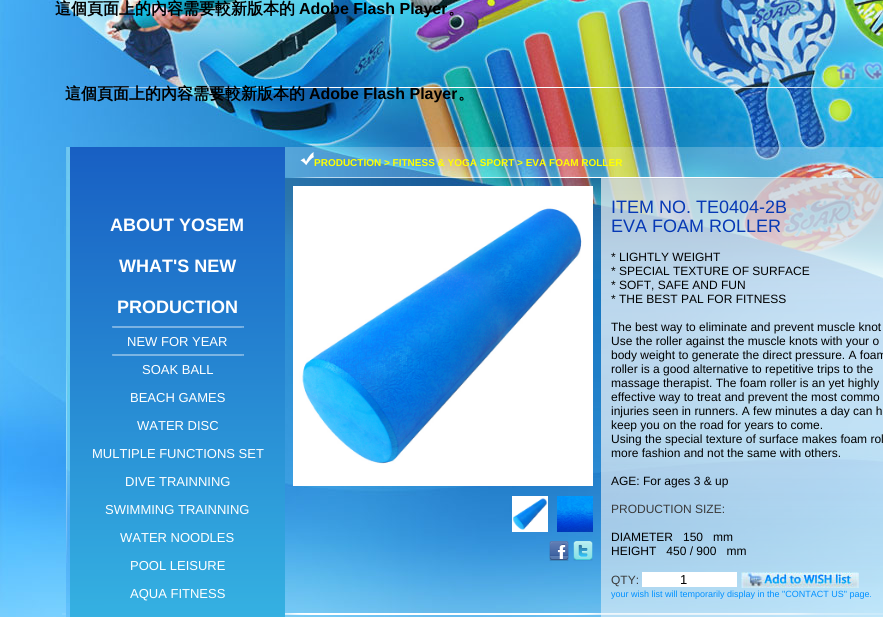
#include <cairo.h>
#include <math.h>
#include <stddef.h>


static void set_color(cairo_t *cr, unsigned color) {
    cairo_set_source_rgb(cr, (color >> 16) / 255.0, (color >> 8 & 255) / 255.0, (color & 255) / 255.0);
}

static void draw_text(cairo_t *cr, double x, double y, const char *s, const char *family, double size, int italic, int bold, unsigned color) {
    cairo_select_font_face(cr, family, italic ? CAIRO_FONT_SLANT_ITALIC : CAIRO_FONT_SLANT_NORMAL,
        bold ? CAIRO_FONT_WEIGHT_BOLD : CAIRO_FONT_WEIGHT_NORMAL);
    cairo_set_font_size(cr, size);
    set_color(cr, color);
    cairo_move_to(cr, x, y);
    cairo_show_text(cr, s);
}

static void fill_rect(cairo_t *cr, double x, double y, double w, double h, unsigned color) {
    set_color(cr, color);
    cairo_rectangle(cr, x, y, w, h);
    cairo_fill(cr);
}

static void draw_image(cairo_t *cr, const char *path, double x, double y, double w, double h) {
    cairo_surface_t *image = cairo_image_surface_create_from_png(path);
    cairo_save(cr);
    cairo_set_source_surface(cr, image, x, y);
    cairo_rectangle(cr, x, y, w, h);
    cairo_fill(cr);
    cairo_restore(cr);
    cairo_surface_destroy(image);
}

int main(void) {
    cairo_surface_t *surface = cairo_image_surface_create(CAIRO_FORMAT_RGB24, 883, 617);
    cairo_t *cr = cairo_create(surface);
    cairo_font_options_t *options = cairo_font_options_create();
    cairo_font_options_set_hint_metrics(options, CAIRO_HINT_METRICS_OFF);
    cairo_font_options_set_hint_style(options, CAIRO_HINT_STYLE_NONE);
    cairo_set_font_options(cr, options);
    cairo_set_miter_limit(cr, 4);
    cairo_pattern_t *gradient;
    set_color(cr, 0xFFFFFF);
    cairo_paint(cr);
    draw_image(cr, "assets/img1.png", 0, 0, 128, 146);
    draw_image(cr, "assets/img2.png", 128, 0, 128, 146);
    draw_image(cr, "assets/img3.png", 256, 0, 128, 146);
    draw_image(cr, "assets/img4.png", 384, 0, 128, 146);
    draw_image(cr, "assets/img5.png", 512, 0, 128, 146);
    draw_image(cr, "assets/img6.png", 640, 0, 128, 146);
    draw_image(cr, "assets/img7.png", 768, 0, 115, 146);
    draw_image(cr, "assets/img8.png", 0, 146, 128, 214);
    draw_image(cr, "assets/img9.png", 128, 146, 128, 1);
    draw_image(cr, "assets/img10.png", 256, 146, 128, 214);
    draw_image(cr, "assets/img11.png", 384, 146, 128, 40);
    draw_image(cr, "assets/img12.png", 512, 146, 128, 214);
    draw_image(cr, "assets/img13.png", 640, 146, 128, 214);
    draw_image(cr, "assets/img14.png", 768, 146, 115, 214);
    draw_image(cr, "assets/img15.png", 0, 360, 66, 257);
    draw_image(cr, "assets/img16.png", 285, 360, 99, 257);
    draw_image(cr, "assets/img17.png", 384, 486, 128, 131);
    draw_image(cr, "assets/img18.png", 512, 360, 128, 257);
    draw_image(cr, "assets/img19.png", 640, 360, 128, 257);
    draw_image(cr, "assets/img20.png", 768, 360, 115, 257);
    draw_text(cr, 55, 14, "這個頁面上的內容需要較新版本的", "WenQuanYi Zen Hei", 16, 0, 1, 0x000000);
    draw_text(cr, 299, 14, "Adobe Flash Player", "Liberation Sans", 16, 0, 1, 0x000000);
    draw_text(cr, 448, 14, "。", "WenQuanYi Zen Hei", 16, 0, 1, 0x000000);
    draw_image(cr, "assets/img21.png", 837, 62, 20, 18);
    draw_image(cr, "assets/img22.png", 863, 62, 20, 18);
    draw_image(cr, "assets/img23.png", 70, 87, 813, 1);
    draw_text(cr, 65, 99, "這個頁面上的內容需要較新版本的", "WenQuanYi Zen Hei", 16, 0, 1, 0x000000);
    draw_text(cr, 309, 99, "Adobe Flash Player", "Liberation Sans", 16, 0, 1, 0x000000);
    draw_text(cr, 458, 99, "。", "WenQuanYi Zen Hei", 16, 0, 1, 0x000000);
    draw_image(cr, "assets/img24.png", 62, 613, 821, 2);
    draw_image(cr, "assets/img25.png", 66, 147, 4, 470);
    gradient = cairo_pattern_create_linear(177, 147, 178, 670);
    cairo_pattern_add_color_stop_rgba(gradient, 0, 0.094, 0.373, 0.765, 1);
    cairo_pattern_add_color_stop_rgba(gradient, 1, 0.22, 0.729, 0.898, 1);
    cairo_set_source(cr, gradient);
    cairo_pattern_destroy(gradient);
    cairo_rectangle(cr, 70, 147, 215, 470);
    cairo_fill(cr);
    draw_text(cr, 110, 231, "ABOUT YOSEM", "Liberation Sans", 18, 0, 1, 0xFFFFFF);
    draw_text(cr, 119, 272, "WHAT'S NEW", "Liberation Sans", 18, 0, 1, 0xFFFFFF);
    draw_image(cr, "assets/img26.png", 112, 326, 132, 2);
    draw_text(cr, 117, 313, "PRODUCTION", "Liberation Sans", 18, 0, 1, 0xFFFFFF);
    draw_image(cr, "assets/img27.png", 112, 354, 132, 2);
    draw_text(cr, 127, 346, "NEW FOR YEAR", "Liberation Sans", 13, 0, 0, 0xFFFFFF);
    draw_text(cr, 142, 374, "SOAK BALL", "Liberation Sans", 13, 0, 0, 0xFFFFFF);
    draw_text(cr, 130, 402, "BEACH GAMES", "Liberation Sans", 13, 0, 0, 0xFFFFFF);
    draw_text(cr, 137, 430, "WATER DISC", "Liberation Sans", 13, 0, 0, 0xFFFFFF);
    draw_text(cr, 92, 458, "MULTIPLE FUNCTIONS SET", "Liberation Sans", 13, 0, 0, 0xFFFFFF);
    draw_text(cr, 125, 486, "DIVE TRAINNING", "Liberation Sans", 13, 0, 0, 0xFFFFFF);
    draw_text(cr, 105, 514, "SWIMMING TRAINNING", "Liberation Sans", 13, 0, 0, 0xFFFFFF);
    draw_text(cr, 120, 542, "WATER NOODLES", "Liberation Sans", 13, 0, 0, 0xFFFFFF);
    draw_text(cr, 130, 570, "POOL LEISURE", "Liberation Sans", 13, 0, 0, 0xFFFFFF);
    draw_text(cr, 130, 598, "AQUA FITNESS", "Liberation Sans", 13, 0, 0, 0xFFFFFF);
    cairo_set_source_rgba(cr, 1, 1, 1, 0.23);
    cairo_rectangle(cr, 285, 147, 598, 30);
    cairo_fill(cr);
    draw_image(cr, "assets/img28.png", 300, 152, 14, 14);
    draw_text(cr, 314, 166, "PRODUCTION > FITNESS & YOGA SPORT > EVA FOAM ROLLER", "Liberation Sans", 10, 0, 1, 0xFFFF00);
    draw_image(cr, "assets/img29.png", 285, 177, 598, 1);
    draw_image(cr, "assets/img30.png", 285, 178, 316, 101);
    draw_image(cr, "assets/img31.png", 293, 186, 300, 300);
    draw_image(cr, "assets/img32.png", 512, 496, 36, 36);
    draw_image(cr, "assets/img33.png", 557, 496, 36, 36);
    draw_image(cr, "assets/img34.png", 549, 541, 20, 20);
    draw_image(cr, "assets/img35.png", 573, 541, 20, 20);
    draw_image(cr, "assets/img36.png", 601, 178, 282, 439);
    draw_text(cr, 611, 213, "ITEM NO. TE0404-2B", "Liberation Sans", 18, 0, 0, 0x0638B5);
    draw_text(cr, 611, 232, "EVA FOAM ROLLER", "Liberation Sans", 18, 0, 0, 0x0638B5);
    draw_text(cr, 611, 261, "* LIGHTLY WEIGHT", "Liberation Sans", 12, 0, 0, 0x000000);
    draw_text(cr, 611, 275, "* SPECIAL TEXTURE OF SURFACE", "Liberation Sans", 12, 0, 0, 0x000000);
    draw_text(cr, 611, 289, "* SOFT, SAFE AND FUN", "Liberation Sans", 12, 0, 0, 0x000000);
    draw_text(cr, 611, 303, "* THE BEST PAL FOR FITNESS", "Liberation Sans", 12, 0, 0, 0x000000);
    draw_text(cr, 611, 331, "The best way to eliminate and prevent muscle knot", "Liberation Sans", 12, 0, 0, 0x000000);
    draw_text(cr, 611, 345, "Use the roller against the muscle knots with your o", "Liberation Sans", 12, 0, 0, 0x000000);
    draw_text(cr, 611, 359, "body weight to generate the direct pressure. A foam", "Liberation Sans", 12, 0, 0, 0x000000);
    draw_text(cr, 611, 373, "roller is a good alternative to repetitive trips to the", "Liberation Sans", 12, 0, 0, 0x000000);
    draw_text(cr, 611, 387, "massage therapist. The foam roller is an yet highly", "Liberation Sans", 12, 0, 0, 0x000000);
    draw_text(cr, 611, 401, "effective way to treat and prevent the most commo", "Liberation Sans", 12, 0, 0, 0x000000);
    draw_text(cr, 611, 415, "injuries seen in runners. A few minutes a day can h", "Liberation Sans", 12, 0, 0, 0x000000);
    draw_text(cr, 611, 429, "keep you on the road for years to come.", "Liberation Sans", 12, 0, 0, 0x000000);
    draw_text(cr, 611, 443, "Using the special texture of surface makes foam rol", "Liberation Sans", 12, 0, 0, 0x000000);
    draw_text(cr, 611, 457, "more fashion and not the same with others.", "Liberation Sans", 12, 0, 0, 0x000000);
    draw_text(cr, 611, 485, "AGE: For ages 3 & up", "Liberation Sans", 12, 0, 0, 0x000000);
    draw_text(cr, 611, 513, "PRODUCTION SIZE:", "Liberation Sans", 12, 0, 0, 0x3A3A3A);
    draw_text(cr, 611, 541, "DIAMETER   150   mm", "Liberation Sans", 12, 0, 0, 0x000000);
    draw_text(cr, 611, 555, "HEIGHT   450 / 900   mm", "Liberation Sans", 12, 0, 0, 0x000000);
    draw_text(cr, 611, 584, "QTY:", "Liberation Sans", 12, 0, 0, 0x3A3A3A);
    fill_rect(cr, 642, 572, 95, 15, 0xFFFFFF);
    draw_text(cr, 680, 584, "1", "Liberation Sans", 13, 0, 0, 0x000000);
    draw_image(cr, "assets/img37.png", 741, 572, 118, 16);
    draw_text(cr, 611, 597, "your wish list will temporarily display in the \"CONTACT US\" page.", "Liberation Sans", 9, 0, 0, 0x0090FF);
    cairo_surface_write_to_png(surface, "output.png");
    cairo_font_options_destroy(options);
    cairo_destroy(cr);
    cairo_surface_destroy(surface);
    return 0;
}
